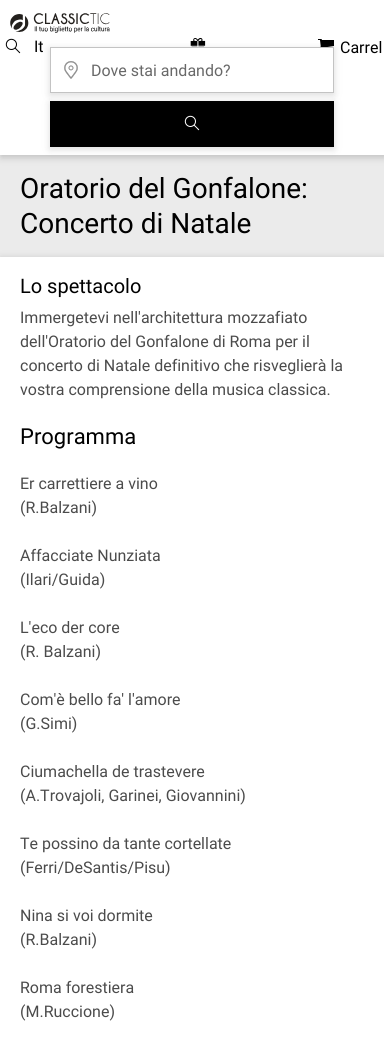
#include <cairo.h>
#include <math.h>
#include <stddef.h>


static void set_color(cairo_t *cr, unsigned color) {
    cairo_set_source_rgb(cr, (color >> 16) / 255.0, (color >> 8 & 255) / 255.0, (color & 255) / 255.0);
}

static void draw_text(cairo_t *cr, double x, double y, const char *s, const char *family, double size, int italic, int bold, unsigned color) {
    cairo_select_font_face(cr, family, italic ? CAIRO_FONT_SLANT_ITALIC : CAIRO_FONT_SLANT_NORMAL,
        bold ? CAIRO_FONT_WEIGHT_BOLD : CAIRO_FONT_WEIGHT_NORMAL);
    cairo_set_font_size(cr, size);
    set_color(cr, color);
    cairo_move_to(cr, x, y);
    cairo_show_text(cr, s);
}

static void fill_rect(cairo_t *cr, double x, double y, double w, double h, unsigned color) {
    set_color(cr, color);
    cairo_rectangle(cr, x, y, w, h);
    cairo_fill(cr);
}

static void rounded_rect(cairo_t *cr, double x, double y, double w, double h, double r) {
    cairo_new_sub_path(cr);
    cairo_arc(cr, x + w - r, y + h - r, r, 0, M_PI / 2);
    cairo_arc(cr, x + r, y + h - r, r, M_PI / 2, M_PI);
    cairo_arc(cr, x + r, y + r, r, M_PI, 1.5 * M_PI);
    cairo_arc(cr, x + w - r, y + r, r, 1.5 * M_PI, 2 * M_PI);
    cairo_close_path(cr);
}

static void draw_shadow(cairo_t *cr, double x, double y, double w, double h, double r, double blur, double alpha) {
    cairo_push_group_with_content(cr, CAIRO_CONTENT_ALPHA);
    cairo_set_operator(cr, CAIRO_OPERATOR_SOURCE);
    for (int i = 15; i >= -15 && fmin(w, h) + blur * i / 3 > 0; i -= 2) {
        double e = blur * i / 6;
        cairo_set_source_rgba(cr, 0, 0, 0, alpha * erfc((i - 1) / 8.5) / 2);
        rounded_rect(cr, x - e, y - e, w + 2 * e, h + 2 * e, fmax(0, fmin(r + e + blur * .6, fmin(w, h) / 2 + e)));
        cairo_fill(cr);
    }
    cairo_pattern_t *soft = cairo_pop_group(cr);
    cairo_mask(cr, soft);
    cairo_pattern_destroy(soft);
}

static void draw_image(cairo_t *cr, const char *path, double x, double y, double w, double h) {
    cairo_surface_t *image = cairo_image_surface_create_from_png(path);
    cairo_save(cr);
    cairo_set_source_surface(cr, image, x, y);
    cairo_rectangle(cr, x, y, w, h);
    cairo_fill(cr);
    cairo_restore(cr);
    cairo_surface_destroy(image);
}

int main(void) {
    cairo_surface_t *surface = cairo_image_surface_create(CAIRO_FORMAT_RGB24, 384, 1040);
    cairo_t *cr = cairo_create(surface);
    cairo_font_options_t *options = cairo_font_options_create();
    cairo_font_options_set_hint_metrics(options, CAIRO_HINT_METRICS_OFF);
    cairo_font_options_set_hint_style(options, CAIRO_HINT_STYLE_NONE);
    cairo_set_font_options(cr, options);
    cairo_set_miter_limit(cr, 4);
    set_color(cr, 0xEBEBEB);
    cairo_paint(cr);
    set_color(cr, 0x4A4A4A);
    draw_shadow(cr, 1, 2, 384, 155, 0, 4, 0.3);
    fill_rect(cr, 0, 0, 384, 155, 0xFFFFFF);
    draw_image(cr, "assets/img1.png", 10, 13, 100, 20);
    draw_image(cr, "assets/img2.png", 5, 38, 16, 16);
    draw_text(cr, 34, 52, "It", "Roboto", 16, 0, 0, 0x000000);
    draw_image(cr, "assets/img3.png", 190, 37, 16, 10);
    draw_image(cr, "assets/img4.png", 318, 39, 16, 8);
    draw_text(cr, 340, 53, "Carrel", "Roboto", 16, 0, 0, 0x000000);
    set_color(cr, 0x4A4A4A);
    draw_shadow(cr, 50, 103, 284, 46, 0, 4, 0.2);
    fill_rect(cr, 50, 101, 284, 46, 0x000000);
    set_color(cr, 0x4A4A4A);
    draw_shadow(cr, 50, 49, 284, 46, 0, 4, 0.2);
    fill_rect(cr, 51, 48, 282, 44, 0xFFFFFF);
    draw_image(cr, "assets/img5.png", 64, 61, 14, 18);
    cairo_rectangle(cr, 50.5, 47.5, 283, 45);
    set_color(cr, 0xC3C3C3);
    cairo_set_line_width(cr, 1);
    cairo_stroke(cr);
    draw_text(cr, 91, 76, "Dove stai andando?", "Roboto", 16, 0, 0, 0x686868);
    draw_image(cr, "assets/img6.png", 184, 115, 16, 16);
    draw_text(cr, 20, 198, "Oratorio del Gonfalone:", "Roboto", 28, 0, 0, 0x000000);
    draw_text(cr, 20, 233, "Concerto di Natale", "Roboto", 28, 0, 0, 0x000000);
    set_color(cr, 0x4A4A4A);
    draw_shadow(cr, 1, 259, 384, 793, 0, 4, 0.3);
    fill_rect(cr, 0, 257, 384, 783, 0xFFFFFF);
    draw_text(cr, 20, 293, "Lo spettacolo", "Roboto", 20, 0, 0, 0x000000);
    draw_text(cr, 20, 323, "Immergetevi nell'architettura mozzafiato", "Roboto", 16, 0, 0, 0x4B4B4B);
    draw_text(cr, 20, 347, "dell'Oratorio del Gonfalone di Roma per il", "Roboto", 16, 0, 0, 0x4B4B4B);
    draw_text(cr, 20, 371, "concerto di Natale definitivo che risveglierà la", "Roboto", 16, 0, 0, 0x4B4B4B);
    draw_text(cr, 20, 395, "vostra comprensione della musica classica.", "Roboto", 16, 0, 0, 0x4B4B4B);
    draw_text(cr, 20, 444, "Programma", "Roboto", 22, 0, 0, 0x000000);
    draw_text(cr, 20, 489, "Er carrettiere a vino", "Roboto", 16, 0, 0, 0x4B4B4B);
    draw_text(cr, 20, 513, "(R.Balzani)", "Roboto", 16, 0, 0, 0x4B4B4B);
    draw_text(cr, 20, 561, "Affacciate Nunziata", "Roboto", 16, 0, 0, 0x4B4B4B);
    draw_text(cr, 20, 585, "(Ilari/Guida)", "Roboto", 16, 0, 0, 0x4B4B4B);
    draw_text(cr, 20, 633, "L'eco der core", "Roboto", 16, 0, 0, 0x4B4B4B);
    draw_text(cr, 20, 657, "(R. Balzani)", "Roboto", 16, 0, 0, 0x4B4B4B);
    draw_text(cr, 20, 705, "Com'è bello fa' l'amore", "Roboto", 16, 0, 0, 0x4B4B4B);
    draw_text(cr, 20, 729, "(G.Simi)", "Roboto", 16, 0, 0, 0x4B4B4B);
    draw_text(cr, 20, 777, "Ciumachella de trastevere", "Roboto", 16, 0, 0, 0x4B4B4B);
    draw_text(cr, 20, 801, "(A.Trovajoli, Garinei, Giovannini)", "Roboto", 16, 0, 0, 0x4B4B4B);
    draw_text(cr, 20, 849, "Te possino da tante cortellate", "Roboto", 16, 0, 0, 0x4B4B4B);
    draw_text(cr, 20, 873, "(Ferri/DeSantis/Pisu)", "Roboto", 16, 0, 0, 0x4B4B4B);
    draw_text(cr, 20, 921, "Nina si voi dormite", "Roboto", 16, 0, 0, 0x4B4B4B);
    draw_text(cr, 20, 945, "(R.Balzani)", "Roboto", 16, 0, 0, 0x4B4B4B);
    draw_text(cr, 20, 993, "Roma forestiera", "Roboto", 16, 0, 0, 0x4B4B4B);
    draw_text(cr, 20, 1017, "(M.Ruccione)", "Roboto", 16, 0, 0, 0x4B4B4B);
    cairo_surface_write_to_png(surface, "output.png");
    cairo_font_options_destroy(options);
    cairo_destroy(cr);
    cairo_surface_destroy(surface);
    return 0;
}
